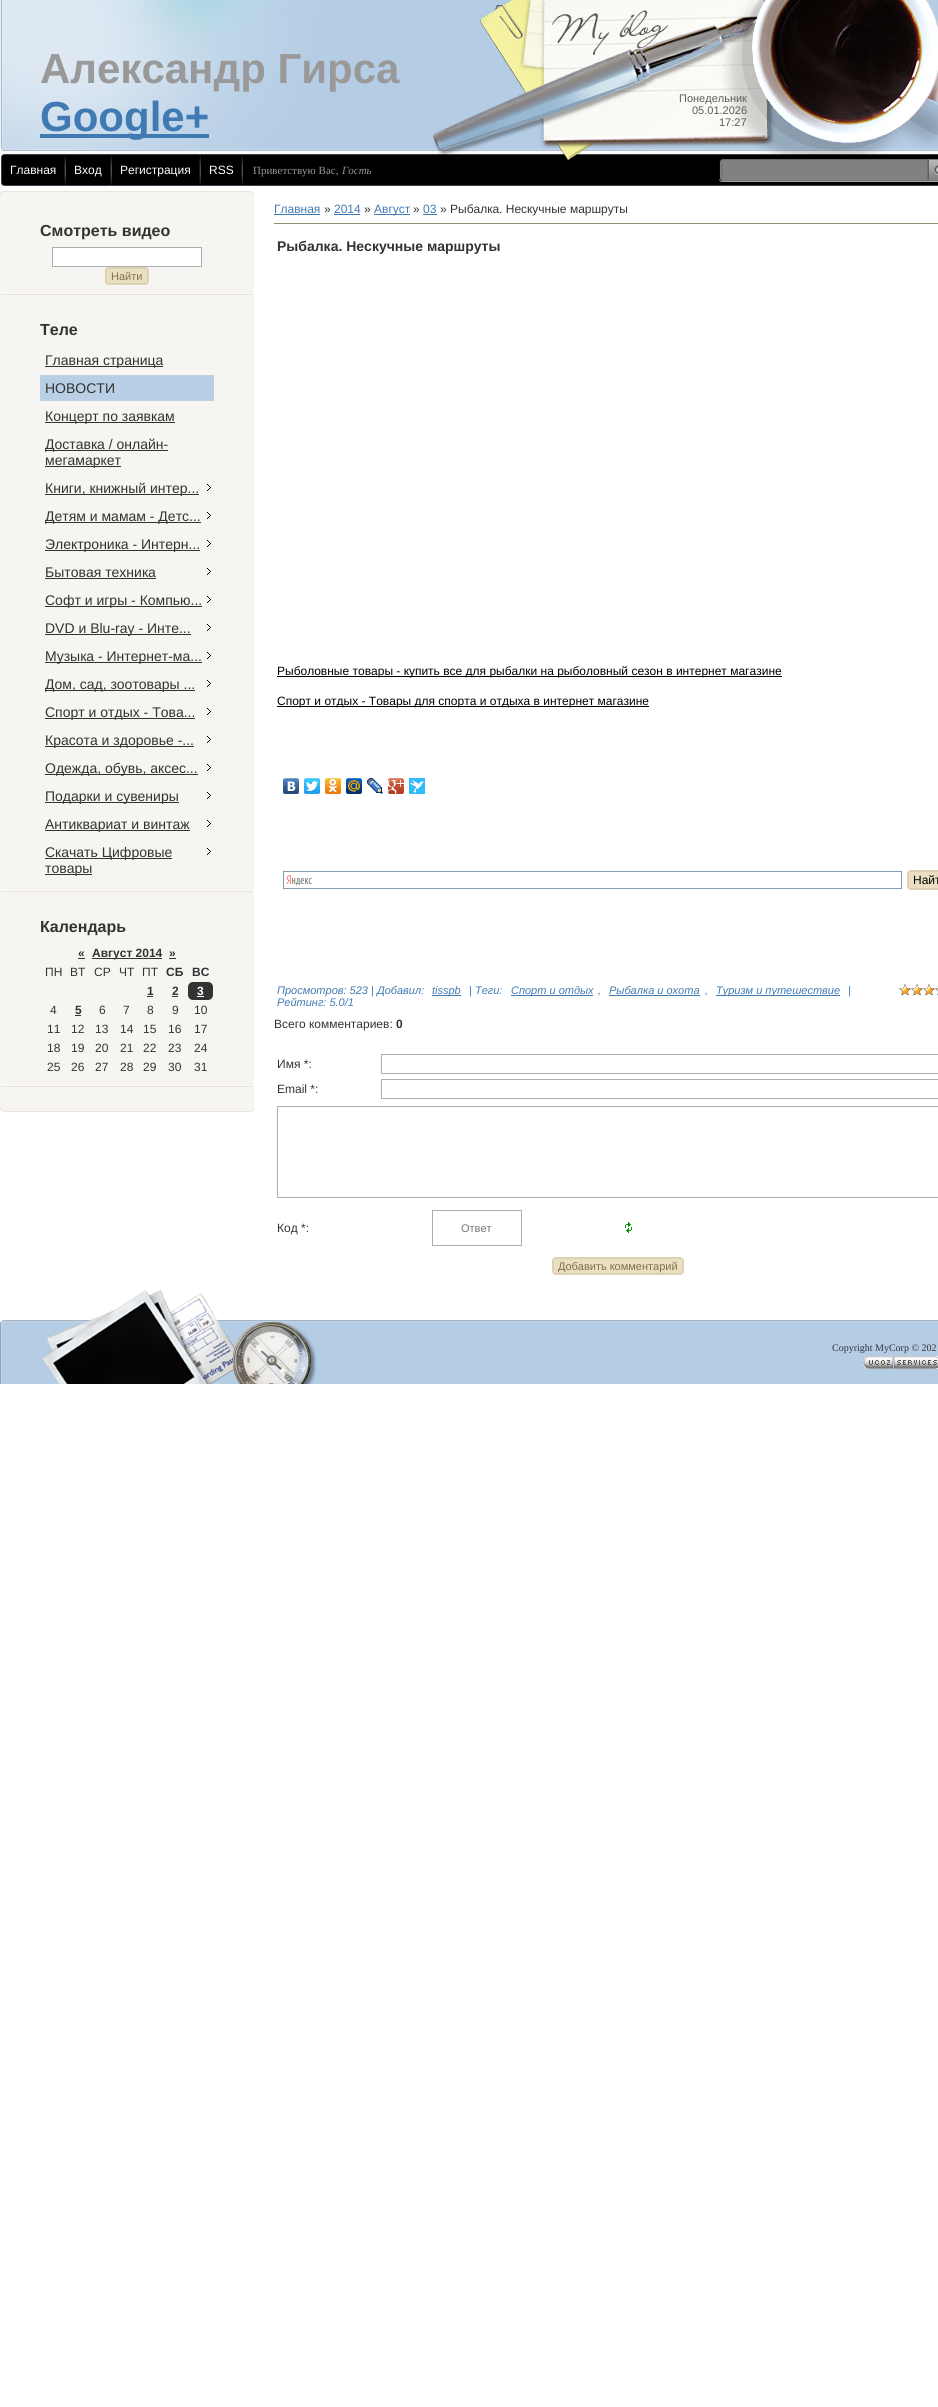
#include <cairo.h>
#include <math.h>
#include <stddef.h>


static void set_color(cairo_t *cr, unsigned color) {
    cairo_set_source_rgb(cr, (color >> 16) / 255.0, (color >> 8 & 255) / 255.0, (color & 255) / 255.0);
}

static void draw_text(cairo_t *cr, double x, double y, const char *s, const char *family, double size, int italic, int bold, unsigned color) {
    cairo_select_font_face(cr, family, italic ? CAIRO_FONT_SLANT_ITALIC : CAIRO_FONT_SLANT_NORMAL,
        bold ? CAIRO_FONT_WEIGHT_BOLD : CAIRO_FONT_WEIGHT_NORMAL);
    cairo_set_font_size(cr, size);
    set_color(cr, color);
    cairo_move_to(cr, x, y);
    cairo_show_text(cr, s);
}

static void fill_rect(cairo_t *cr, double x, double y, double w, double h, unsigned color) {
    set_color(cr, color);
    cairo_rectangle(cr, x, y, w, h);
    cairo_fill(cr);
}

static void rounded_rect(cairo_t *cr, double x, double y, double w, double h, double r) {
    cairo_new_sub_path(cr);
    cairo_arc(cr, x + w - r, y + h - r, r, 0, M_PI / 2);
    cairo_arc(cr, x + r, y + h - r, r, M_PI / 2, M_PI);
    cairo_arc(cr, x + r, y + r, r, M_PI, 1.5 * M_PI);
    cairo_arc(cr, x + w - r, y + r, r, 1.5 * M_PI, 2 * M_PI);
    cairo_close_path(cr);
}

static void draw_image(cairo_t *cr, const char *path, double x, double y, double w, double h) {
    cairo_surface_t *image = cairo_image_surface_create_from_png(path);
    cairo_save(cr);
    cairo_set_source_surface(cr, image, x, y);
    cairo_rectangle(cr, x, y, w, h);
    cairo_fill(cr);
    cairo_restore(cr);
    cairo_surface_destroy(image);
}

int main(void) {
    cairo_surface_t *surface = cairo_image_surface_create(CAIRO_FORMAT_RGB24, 938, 2407);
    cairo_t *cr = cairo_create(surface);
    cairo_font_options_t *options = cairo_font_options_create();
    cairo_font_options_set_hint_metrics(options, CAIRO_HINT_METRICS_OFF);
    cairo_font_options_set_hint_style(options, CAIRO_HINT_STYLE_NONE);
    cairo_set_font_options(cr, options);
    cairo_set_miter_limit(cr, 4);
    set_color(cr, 0xFFFFFF);
    cairo_paint(cr);
    draw_image(cr, "assets/img1.png", 0, 0, 938, 164);
    draw_image(cr, "assets/img2.png", 0, 0, 938, 151);
    draw_text(cr, 40, 83, "Александр Гирса", "Liberation Sans", 42, 0, 1, 0x999999);
    fill_rect(cr, 40, 134, 169, 4, 0x407AB2);
    draw_text(cr, 40, 131, "Google+", "Liberation Sans", 42, 0, 1, 0x407AB2);
    draw_image(cr, "assets/img4.png", 1, 154, 937, 32);
    draw_image(cr, "assets/img3.png", 432, 0, 506, 161);
    draw_text(cr, 679, 102, "Понедельник", "Liberation Sans", 11, 0, 0, 0x5C5C5C);
    draw_text(cr, 692, 114, "05.01.2026", "Liberation Sans", 11, 0, 0, 0x5C5C5C);
    draw_text(cr, 719, 126, "17:27", "Liberation Sans", 11, 0, 0, 0x5C5C5C);
    draw_image(cr, "assets/img5.png", 64, 155, 2, 31);
    draw_text(cr, 10, 174, "Главная", "Liberation Sans", 12, 0, 0, 0xFFFFFF);
    draw_image(cr, "assets/img5.png", 110, 155, 2, 31);
    draw_text(cr, 74, 174, "Вход", "Liberation Sans", 12, 0, 0, 0xFFFFFF);
    draw_image(cr, "assets/img5.png", 199, 155, 2, 31);
    draw_text(cr, 120, 174, "Регистрация", "Liberation Sans", 12, 0, 0, 0xFFFFFF);
    draw_image(cr, "assets/img5.png", 241, 155, 2, 31);
    draw_text(cr, 209, 174, "RSS", "Liberation Sans", 12, 0, 0, 0xFFFFFF);
    draw_text(cr, 253, 174, "Приветствую Вас,", "Liberation Serif", 11, 0, 0, 0x999999);
    draw_text(cr, 342, 174, "Гость", "Liberation Serif", 11, 1, 0, 0x999999);
    draw_image(cr, "assets/img6.png", 719, 159, 219, 23);
    draw_image(cr, "assets/img7.png", 0, 191, 254, 5);
    fill_rect(cr, 0, 196, 254, 911, 0xF6F5F1);
    draw_image(cr, "assets/img8.png", 1, 293, 252, 2);
    draw_text(cr, 40, 236, "Смотреть видео", "Liberation Sans", 16, 0, 1, 0x333333);
    set_color(cr, 0xFFFFFF);
    cairo_rectangle(cr, 52.5, 247.5, 149, 19);
    cairo_fill_preserve(cr);
    set_color(cr, 0xABADB3);
    cairo_set_line_width(cr, 1);
    cairo_stroke(cr);
    set_color(cr, 0xEADFC1);
    rounded_rect(cr, 106, 268, 42, 16, 3);
    cairo_fill_preserve(cr);
    set_color(cr, 0xDDD3B4);
    cairo_set_line_width(cr, 2);
    cairo_stroke(cr);
    draw_text(cr, 111, 280, "Найти", "Liberation Sans", 11, 0, 0, 0x7F7047);
    draw_image(cr, "assets/img8.png", 1, 890, 252, 2);
    draw_text(cr, 40, 335, "Теле", "Liberation Sans", 16, 0, 1, 0x333333);
    fill_rect(cr, 45, 366, 118, 1, 0x333333);
    draw_text(cr, 45, 365, "Главная страница", "Liberation Sans", 14, 0, 0, 0x333333);
    fill_rect(cr, 40, 375, 174, 26, 0xB8CFE6);
    draw_text(cr, 45, 393, "НОВОСТИ", "Liberation Sans", 14, 0, 0, 0x333333);
    fill_rect(cr, 45, 422, 130, 1, 0x333333);
    draw_text(cr, 45, 421, "Концерт по заявкам", "Liberation Sans", 14, 0, 0, 0x333333);
    fill_rect(cr, 45, 450, 123, 1, 0x333333);
    draw_text(cr, 45, 449, "Доставка / онлайн-", "Liberation Sans", 14, 0, 0, 0x333333);
    fill_rect(cr, 45, 466, 76, 1, 0x333333);
    draw_text(cr, 45, 465, "мегамаркет", "Liberation Sans", 14, 0, 0, 0x333333);
    fill_rect(cr, 45, 494, 154, 1, 0x333333);
    draw_text(cr, 45, 493, "Книги, книжный интер...", "Liberation Sans", 14, 0, 0, 0x333333);
    draw_image(cr, "assets/img9.png", 207, 484, 4, 7);
    fill_rect(cr, 45, 522, 156, 1, 0x333333);
    draw_text(cr, 45, 521, "Детям и мамам - Детс...", "Liberation Sans", 14, 0, 0, 0x333333);
    draw_image(cr, "assets/img9.png", 207, 512, 4, 7);
    fill_rect(cr, 45, 550, 155, 1, 0x333333);
    draw_text(cr, 45, 549, "Электроника - Интерн...", "Liberation Sans", 14, 0, 0, 0x333333);
    draw_image(cr, "assets/img9.png", 207, 540, 4, 7);
    draw_text(cr, 45, 577, "Бытовая техника", "Liberation Sans", 14, 0, 0, 0x333333);
    fill_rect(cr, 45, 578, 111, 1, 0x333333);
    draw_image(cr, "assets/img9.png", 207, 568, 4, 7);
    fill_rect(cr, 45, 606, 157, 1, 0x333333);
    draw_text(cr, 45, 605, "Софт и игры - Компью...", "Liberation Sans", 14, 0, 0, 0x333333);
    draw_image(cr, "assets/img9.png", 207, 596, 4, 7);
    fill_rect(cr, 45, 634, 146, 1, 0x333333);
    draw_text(cr, 45, 633, "DVD и Blu-ray - Инте...", "Liberation Sans", 14, 0, 0, 0x333333);
    draw_image(cr, "assets/img9.png", 207, 624, 4, 7);
    fill_rect(cr, 45, 662, 157, 1, 0x333333);
    draw_text(cr, 45, 661, "Музыка - Интернет-ма...", "Liberation Sans", 14, 0, 0, 0x333333);
    draw_image(cr, "assets/img9.png", 207, 652, 4, 7);
    fill_rect(cr, 45, 690, 150, 1, 0x333333);
    draw_text(cr, 45, 689, "Дом, сад, зоотовары ...", "Liberation Sans", 14, 0, 0, 0x333333);
    draw_image(cr, "assets/img9.png", 207, 680, 4, 7);
    fill_rect(cr, 45, 718, 150, 1, 0x333333);
    draw_text(cr, 45, 717, "Спорт и отдых - Това...", "Liberation Sans", 14, 0, 0, 0x333333);
    draw_image(cr, "assets/img9.png", 207, 708, 4, 7);
    fill_rect(cr, 45, 746, 149, 1, 0x333333);
    draw_text(cr, 45, 745, "Красота и здоровье -...", "Liberation Sans", 14, 0, 0, 0x333333);
    draw_image(cr, "assets/img9.png", 207, 736, 4, 7);
    fill_rect(cr, 45, 774, 153, 1, 0x333333);
    draw_text(cr, 45, 773, "Одежда, обувь, аксес...", "Liberation Sans", 14, 0, 0, 0x333333);
    draw_image(cr, "assets/img9.png", 207, 764, 4, 7);
    fill_rect(cr, 45, 802, 134, 1, 0x333333);
    draw_text(cr, 45, 801, "Подарки и сувениры", "Liberation Sans", 14, 0, 0, 0x333333);
    draw_image(cr, "assets/img9.png", 207, 792, 4, 7);
    fill_rect(cr, 45, 830, 145, 1, 0x333333);
    draw_text(cr, 45, 829, "Антиквариат и винтаж", "Liberation Sans", 14, 0, 0, 0x333333);
    draw_image(cr, "assets/img9.png", 207, 820, 4, 7);
    fill_rect(cr, 45, 858, 127, 1, 0x333333);
    draw_text(cr, 45, 857, "Скачать Цифровые", "Liberation Sans", 14, 0, 0, 0x333333);
    fill_rect(cr, 45, 874, 47, 1, 0x333333);
    draw_text(cr, 45, 873, "товары", "Liberation Sans", 14, 0, 0, 0x333333);
    draw_image(cr, "assets/img9.png", 207, 848, 4, 7);
    draw_image(cr, "assets/img8.png", 1, 1085, 252, 2);
    draw_text(cr, 40, 932, "Календарь", "Liberation Sans", 16, 0, 1, 0x333333);
    draw_text(cr, 78, 957, "«", "Liberation Sans", 12, 0, 1, 0x333333);
    fill_rect(cr, 78, 958, 7, 1, 0x333333);
    fill_rect(cr, 92, 958, 70, 1, 0x333333);
    draw_text(cr, 92, 957, "Август 2014", "Liberation Sans", 12, 0, 1, 0x333333);
    draw_text(cr, 169, 957, "»", "Liberation Sans", 12, 0, 1, 0x333333);
    fill_rect(cr, 169, 958, 7, 1, 0x333333);
    draw_text(cr, 45, 976, "ПН", "Liberation Sans", 12, 0, 0, 0x333333);
    draw_text(cr, 70, 976, "ВТ", "Liberation Sans", 12, 0, 0, 0x333333);
    draw_text(cr, 94, 976, "СР", "Liberation Sans", 12, 0, 0, 0x333333);
    draw_text(cr, 119, 976, "ЧТ", "Liberation Sans", 12, 0, 0, 0x333333);
    draw_text(cr, 142, 976, "ПТ", "Liberation Sans", 12, 0, 0, 0x333333);
    draw_text(cr, 166, 976, "СБ", "Liberation Sans", 12, 0, 1, 0x333333);
    draw_text(cr, 192, 976, "ВС", "Liberation Sans", 12, 0, 1, 0x333333);
    draw_text(cr, 147, 995, "1", "Liberation Sans", 12, 0, 1, 0x333333);
    fill_rect(cr, 147, 996, 6, 1, 0x333333);
    draw_text(cr, 172, 995, "2", "Liberation Sans", 12, 0, 1, 0x333333);
    fill_rect(cr, 172, 996, 6, 1, 0x333333);
    rounded_rect(cr, 188, 982, 25, 18, 5);
    cairo_fill(cr);
    draw_text(cr, 197, 995, "3", "Liberation Sans", 12, 0, 1, 0xFFFFFF);
    fill_rect(cr, 197, 996, 7, 1, 0xFFFFFF);
    draw_text(cr, 50, 1014, "4", "Liberation Sans", 12, 0, 0, 0x333333);
    draw_text(cr, 75, 1014, "5", "Liberation Sans", 12, 0, 1, 0x333333);
    fill_rect(cr, 75, 1015, 6, 1, 0x333333);
    draw_text(cr, 99, 1014, "6", "Liberation Sans", 12, 0, 0, 0x333333);
    draw_text(cr, 123, 1014, "7", "Liberation Sans", 12, 0, 0, 0x333333);
    draw_text(cr, 147, 1014, "8", "Liberation Sans", 12, 0, 0, 0x333333);
    draw_text(cr, 172, 1014, "9", "Liberation Sans", 12, 0, 0, 0x333333);
    draw_text(cr, 194, 1014, "10", "Liberation Sans", 12, 0, 0, 0x333333);
    draw_text(cr, 47, 1033, "11", "Liberation Sans", 12, 0, 0, 0x333333);
    draw_text(cr, 71, 1033, "12", "Liberation Sans", 12, 0, 0, 0x333333);
    draw_text(cr, 95, 1033, "13", "Liberation Sans", 12, 0, 0, 0x333333);
    draw_text(cr, 120, 1033, "14", "Liberation Sans", 12, 0, 0, 0x333333);
    draw_text(cr, 143, 1033, "15", "Liberation Sans", 12, 0, 0, 0x333333);
    draw_text(cr, 168, 1033, "16", "Liberation Sans", 12, 0, 0, 0x333333);
    draw_text(cr, 194, 1033, "17", "Liberation Sans", 12, 0, 0, 0x333333);
    draw_text(cr, 47, 1052, "18", "Liberation Sans", 12, 0, 0, 0x333333);
    draw_text(cr, 71, 1052, "19", "Liberation Sans", 12, 0, 0, 0x333333);
    draw_text(cr, 95, 1052, "20", "Liberation Sans", 12, 0, 0, 0x333333);
    draw_text(cr, 120, 1052, "21", "Liberation Sans", 12, 0, 0, 0x333333);
    draw_text(cr, 143, 1052, "22", "Liberation Sans", 12, 0, 0, 0x333333);
    draw_text(cr, 168, 1052, "23", "Liberation Sans", 12, 0, 0, 0x333333);
    draw_text(cr, 194, 1052, "24", "Liberation Sans", 12, 0, 0, 0x333333);
    draw_text(cr, 47, 1071, "25", "Liberation Sans", 12, 0, 0, 0x333333);
    draw_text(cr, 71, 1071, "26", "Liberation Sans", 12, 0, 0, 0x333333);
    draw_text(cr, 95, 1071, "27", "Liberation Sans", 12, 0, 0, 0x333333);
    draw_text(cr, 120, 1071, "28", "Liberation Sans", 12, 0, 0, 0x333333);
    draw_text(cr, 143, 1071, "29", "Liberation Sans", 12, 0, 0, 0x333333);
    draw_text(cr, 168, 1071, "30", "Liberation Sans", 12, 0, 0, 0x333333);
    draw_text(cr, 194, 1071, "31", "Liberation Sans", 12, 0, 0, 0x333333);
    draw_image(cr, "assets/img10.png", 0, 1107, 254, 5);
    draw_text(cr, 274, 213, "Главная", "Liberation Sans", 12, 0, 0, 0x407AB2);
    fill_rect(cr, 274, 214, 46, 1, 0x407AB2);
    draw_text(cr, 324, 213, "»", "Liberation Sans", 12, 0, 0, 0x333333);
    draw_text(cr, 334, 213, "2014", "Liberation Sans", 12, 0, 0, 0x407AB2);
    fill_rect(cr, 334, 214, 26, 1, 0x407AB2);
    draw_text(cr, 364, 213, "»", "Liberation Sans", 12, 0, 0, 0x333333);
    fill_rect(cr, 374, 214, 36, 1, 0x407AB2);
    draw_text(cr, 374, 213, "Август", "Liberation Sans", 12, 0, 0, 0x407AB2);
    draw_text(cr, 413, 213, "»", "Liberation Sans", 12, 0, 0, 0x333333);
    draw_text(cr, 423, 213, "03", "Liberation Sans", 12, 0, 0, 0x407AB2);
    fill_rect(cr, 423, 214, 14, 1, 0x407AB2);
    draw_text(cr, 440, 213, "» Рыбалка. Нескучные маршруты", "Liberation Sans", 12, 0, 0, 0x333333);
    fill_rect(cr, 274, 223, 664, 1, 0x918F69);
    draw_text(cr, 277, 251, "Рыбалка. Нескучные маршруты", "Liberation Sans", 14, 0, 1, 0x333333);
    fill_rect(cr, 277, 676, 505, 1, 0x000000);
    draw_text(cr, 277, 675, "Рыболовные товары - купить все для рыбалки на рыболовный сезон в интернет магазине", "Liberation Sans", 12, 0, 0, 0x000000);
    fill_rect(cr, 277, 706, 372, 1, 0x000000);
    draw_text(cr, 277, 705, "Спорт и отдых - Товары для спорта и отдыха в интернет магазине", "Liberation Sans", 12, 0, 0, 0x000000);
    draw_image(cr, "assets/img11.png", 283, 778, 16, 16);
    draw_image(cr, "assets/img12.png", 304, 778, 16, 16);
    draw_image(cr, "assets/img13.png", 325, 778, 16, 16);
    draw_image(cr, "assets/img14.png", 346, 778, 16, 16);
    draw_image(cr, "assets/img15.png", 367, 778, 16, 16);
    draw_image(cr, "assets/img16.png", 388, 778, 16, 16);
    draw_image(cr, "assets/img17.png", 409, 778, 16, 16);
    draw_image(cr, "assets/img18.png", 286, 875, 26, 11);
    cairo_rectangle(cr, 283.5, 871.5, 618, 17);
    set_color(cr, 0x7F9DB9);
    cairo_set_line_width(cr, 1);
    cairo_stroke(cr);
    set_color(cr, 0xEADFC1);
    rounded_rect(cr, 908, 871, 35, 18, 3);
    cairo_fill_preserve(cr);
    set_color(cr, 0xDDD3B4);
    cairo_set_line_width(cr, 2);
    cairo_stroke(cr);
    draw_text(cr, 913, 884, "Найт", "Liberation Sans", 12, 0, 0, 0x000000);
    draw_text(cr, 277, 994, "Просмотров: 523 | Добавил:", "Liberation Sans", 11, 1, 0, 0x407AB2);
    fill_rect(cr, 432, 995, 29, 1, 0x407AB2);
    draw_text(cr, 432, 994, "tisspb", "Liberation Sans", 11, 1, 0, 0x407AB2);
    draw_text(cr, 469, 994, "| Теги:", "Liberation Sans", 11, 1, 0, 0x407AB2);
    fill_rect(cr, 511, 995, 82, 1, 0x407AB2);
    draw_text(cr, 511, 994, "Спорт и отдых", "Liberation Sans", 11, 1, 0, 0x407AB2);
    draw_text(cr, 598, 994, ",", "Liberation Sans", 11, 1, 0, 0x407AB2);
    draw_text(cr, 609, 994, "Рыбалка и охота", "Liberation Sans", 11, 1, 0, 0x407AB2);
    draw_text(cr, 705, 994, ",", "Liberation Sans", 11, 1, 0, 0x407AB2);
    fill_rect(cr, 609, 995, 91, 1, 0x407AB2);
    fill_rect(cr, 716, 995, 124, 1, 0x407AB2);
    draw_text(cr, 716, 994, "Туризм и путешествие", "Liberation Sans", 11, 1, 0, 0x407AB2);
    draw_text(cr, 848, 994, "|", "Liberation Sans", 11, 1, 0, 0x407AB2);
    draw_image(cr, "assets/img19.png", 899, 984, 39, 12);
    draw_image(cr, "assets/img20.png", 899, 984, 39, 12);
    draw_text(cr, 277, 1006, "Рейтинг: 5.0/1", "Liberation Sans", 11, 1, 0, 0x407AB2);
    draw_text(cr, 274, 1028, "Всего комментариев:", "Liberation Sans", 12, 0, 0, 0x333333);
    draw_text(cr, 396, 1028, "0", "Liberation Sans", 12, 0, 1, 0x333333);
    draw_text(cr, 277, 1068, "Имя *:", "Liberation Sans", 12, 0, 0, 0x333333);
    cairo_rectangle(cr, 381.5, 1054.5, 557, 19);
    set_color(cr, 0xABADB3);
    cairo_set_line_width(cr, 1);
    cairo_stroke(cr);
    draw_text(cr, 277, 1093, "Email *:", "Liberation Sans", 12, 0, 0, 0x333333);
    cairo_rectangle(cr, 381.5, 1079.5, 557, 19);
    set_color(cr, 0xABADB3);
    cairo_stroke(cr);
    cairo_rectangle(cr, 277.5, 1106.5, 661, 91);
    cairo_stroke(cr);
    draw_text(cr, 277, 1232, "Код *:", "Liberation Sans", 12, 0, 0, 0x333333);
    cairo_rectangle(cr, 432.5, 1210.5, 89, 35);
    set_color(cr, 0xABADB3);
    cairo_stroke(cr);
    draw_text(cr, 461, 1232, "Ответ", "Liberation Sans", 11, 0, 0, 0x757575);
    draw_image(cr, "assets/img21.png", 625, 1222, 7, 11);
    set_color(cr, 0xEADFC1);
    rounded_rect(cr, 553, 1258, 130, 16, 3);
    cairo_fill_preserve(cr);
    set_color(cr, 0xDDD3B4);
    cairo_set_line_width(cr, 2);
    cairo_stroke(cr);
    draw_text(cr, 558, 1270, "Добавить комментарий", "Liberation Sans", 11, 0, 0, 0x7F7047);
    draw_image(cr, "assets/img22.png", 0, 1320, 938, 64);
    draw_image(cr, "assets/img23.png", 42, 1289, 275, 95);
    draw_text(cr, 832, 1351, "Copyright MyCorp © 202", "Liberation Serif", 10, 0, 0, 0x333333);
    draw_image(cr, "assets/img24.png", 863, 1356, 75, 13);
    cairo_surface_write_to_png(surface, "output.png");
    cairo_font_options_destroy(options);
    cairo_destroy(cr);
    cairo_surface_destroy(surface);
    return 0;
}
